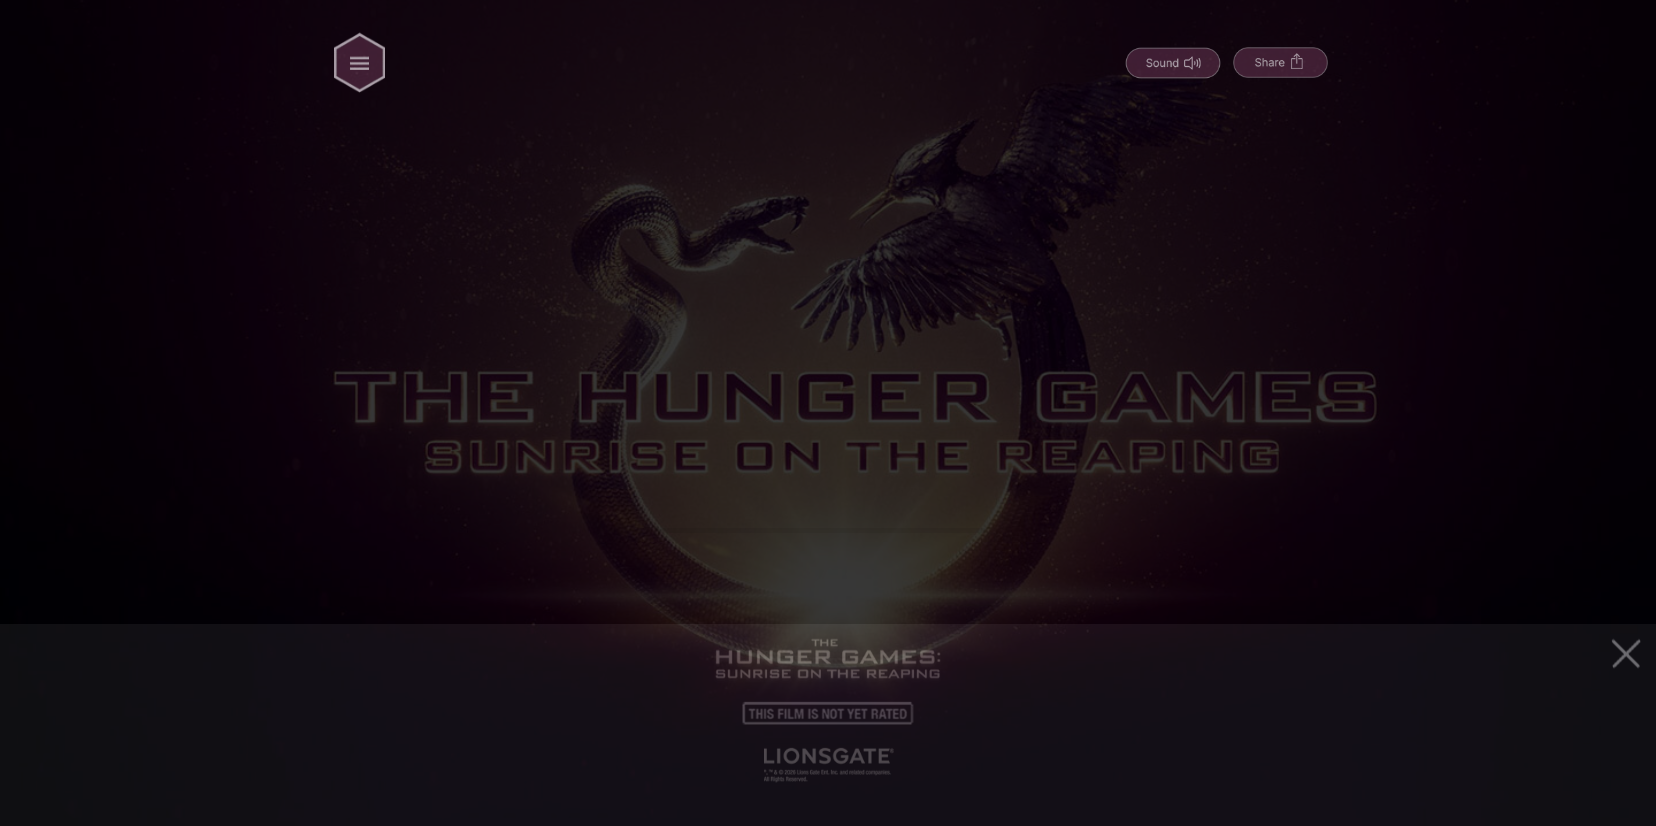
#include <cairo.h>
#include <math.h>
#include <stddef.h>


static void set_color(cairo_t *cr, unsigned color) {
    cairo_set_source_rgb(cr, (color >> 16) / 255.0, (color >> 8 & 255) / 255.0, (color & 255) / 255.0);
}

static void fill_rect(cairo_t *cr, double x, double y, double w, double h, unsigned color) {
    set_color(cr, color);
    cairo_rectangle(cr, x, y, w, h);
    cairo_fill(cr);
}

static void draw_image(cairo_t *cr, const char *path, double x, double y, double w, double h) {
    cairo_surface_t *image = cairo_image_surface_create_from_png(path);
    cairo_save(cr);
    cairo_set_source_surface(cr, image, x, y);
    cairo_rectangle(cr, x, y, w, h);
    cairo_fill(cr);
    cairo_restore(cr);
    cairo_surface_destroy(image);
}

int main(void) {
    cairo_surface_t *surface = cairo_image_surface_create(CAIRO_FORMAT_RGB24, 1656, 826);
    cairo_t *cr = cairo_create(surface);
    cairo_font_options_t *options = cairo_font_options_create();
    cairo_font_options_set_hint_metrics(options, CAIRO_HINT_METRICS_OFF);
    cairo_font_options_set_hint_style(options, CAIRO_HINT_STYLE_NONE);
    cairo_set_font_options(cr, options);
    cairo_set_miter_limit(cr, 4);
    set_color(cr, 0x000000);
    cairo_paint(cr);
    draw_image(cr, "assets/img2.png", 334, 32, 51, 61);
    draw_image(cr, "assets/img3.png", 1125, 47, 96, 32);
    draw_image(cr, "assets/img4.png", 1233, 47, 95, 31);
    fill_rect(cr, 0, 624, 1656, 202, 0x131313);
    draw_image(cr, "assets/img5.png", 714, 638, 227, 145);
    draw_image(cr, "assets/img6.png", 1611, 638, 30, 31);
    draw_image(cr, "assets/img1.png", 0, 0, 1656, 826);
    cairo_set_source_rgba(cr, 0, 0, 0, 0.07);
    cairo_rectangle(cr, 659, 528, 326, 5);
    cairo_fill(cr);
    cairo_surface_write_to_png(surface, "output.png");
    cairo_font_options_destroy(options);
    cairo_destroy(cr);
    cairo_surface_destroy(surface);
    return 0;
}
